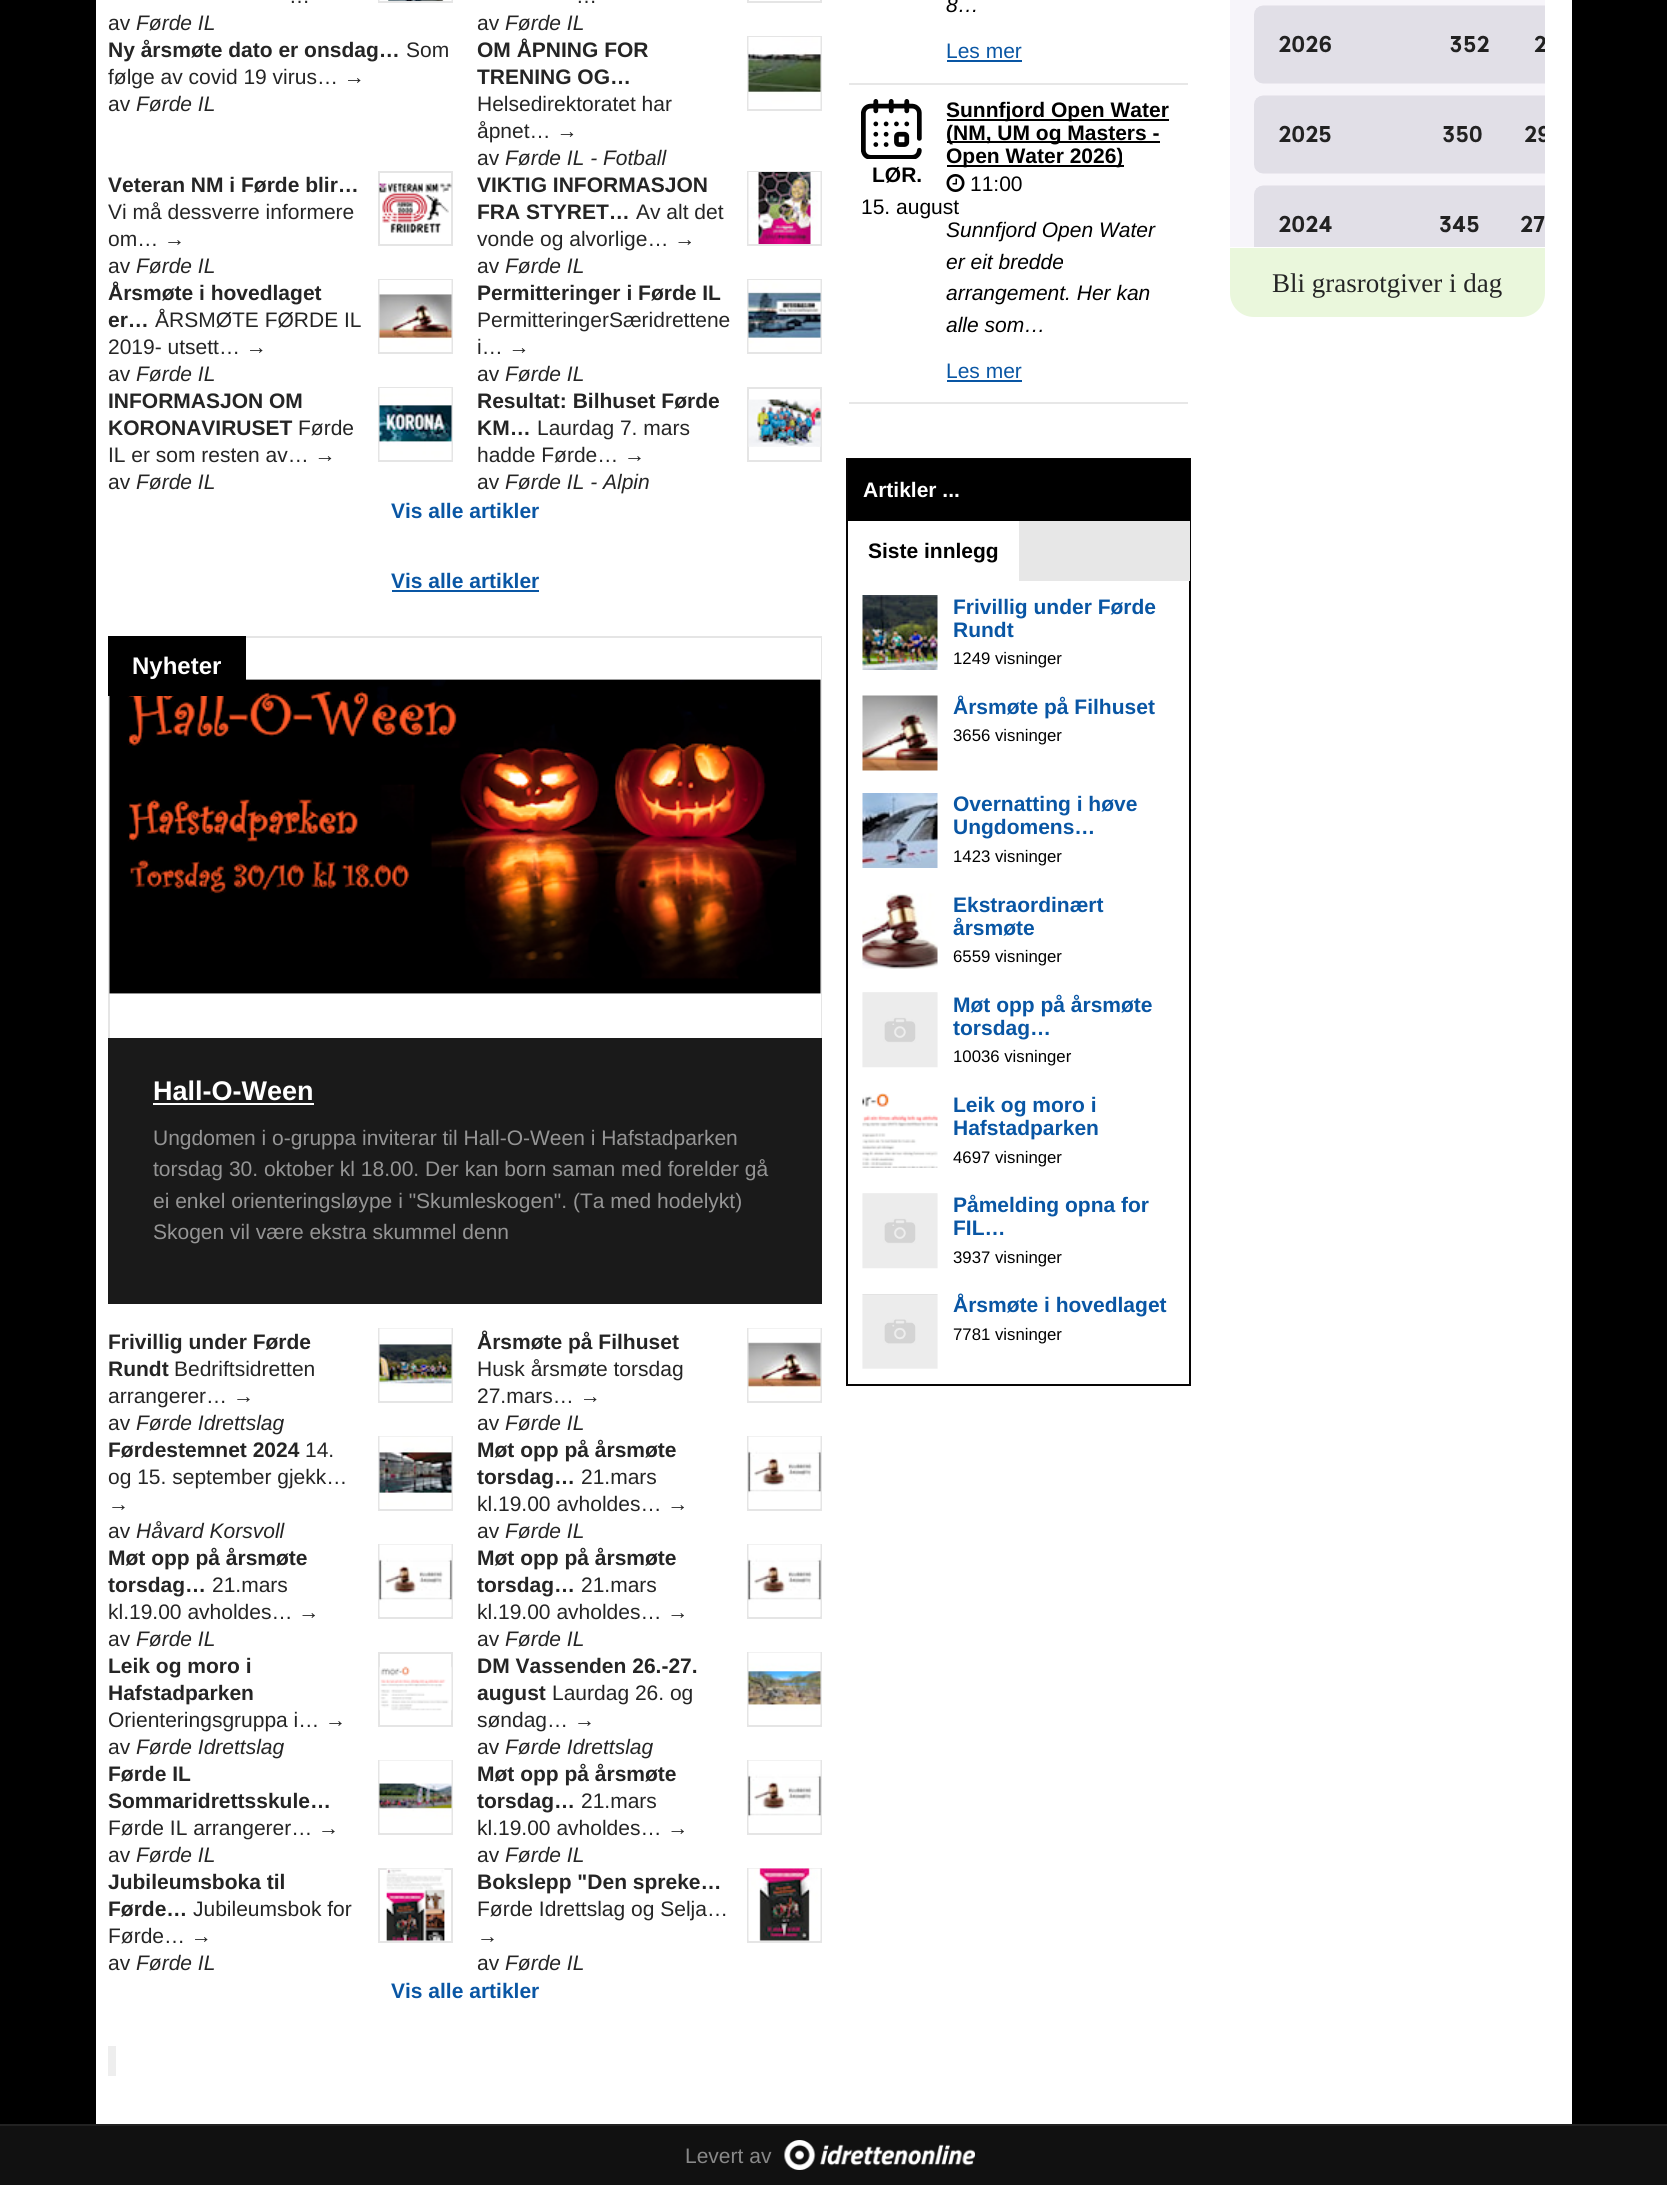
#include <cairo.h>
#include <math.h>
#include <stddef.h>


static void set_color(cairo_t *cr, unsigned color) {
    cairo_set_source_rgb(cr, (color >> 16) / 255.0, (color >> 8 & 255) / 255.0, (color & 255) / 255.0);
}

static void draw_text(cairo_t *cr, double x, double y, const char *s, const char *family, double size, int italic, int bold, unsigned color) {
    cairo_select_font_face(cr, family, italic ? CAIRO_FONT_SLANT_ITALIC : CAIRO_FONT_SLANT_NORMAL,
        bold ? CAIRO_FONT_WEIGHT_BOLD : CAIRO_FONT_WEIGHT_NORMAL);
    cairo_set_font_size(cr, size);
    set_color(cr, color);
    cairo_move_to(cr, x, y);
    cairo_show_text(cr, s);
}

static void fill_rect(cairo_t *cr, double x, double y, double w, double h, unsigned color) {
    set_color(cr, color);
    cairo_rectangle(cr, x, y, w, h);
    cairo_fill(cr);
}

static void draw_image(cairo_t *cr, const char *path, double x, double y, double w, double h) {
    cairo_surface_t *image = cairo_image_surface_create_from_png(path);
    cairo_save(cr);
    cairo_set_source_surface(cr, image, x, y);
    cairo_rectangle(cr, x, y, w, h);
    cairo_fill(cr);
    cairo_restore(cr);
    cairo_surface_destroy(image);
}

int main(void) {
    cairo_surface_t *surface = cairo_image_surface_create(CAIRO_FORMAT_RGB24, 1667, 2185);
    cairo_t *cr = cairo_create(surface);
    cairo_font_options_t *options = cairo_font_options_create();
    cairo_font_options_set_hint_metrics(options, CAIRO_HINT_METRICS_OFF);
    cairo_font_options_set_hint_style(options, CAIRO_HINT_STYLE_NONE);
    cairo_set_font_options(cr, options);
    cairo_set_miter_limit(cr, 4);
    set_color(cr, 0x000000);
    cairo_paint(cr);
    fill_rect(cr, 96, 0, 1476, 2124, 0xFFFFFF);
    draw_text(cr, 289, 3, "…", "Liberation Sans", 21, 0, 0, 0x252525);
    draw_text(cr, 108, 30, "av", "Liberation Sans", 21, 0, 0, 0x252525);
    draw_text(cr, 136, 30, "Førde IL", "Liberation Sans", 21, 1, 0, 0x252525);
    cairo_rectangle(cr, 379, -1, 73, 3);
    set_color(cr, 0xE5E5E5);
    cairo_stroke(cr);
    draw_image(cr, "assets/img1.png", 379, 0, 73, 1);
    draw_text(cr, 576, 3, "…", "Liberation Sans", 21, 0, 0, 0x252525);
    draw_text(cr, 477, 30, "av", "Liberation Sans", 21, 0, 0, 0x252525);
    draw_text(cr, 505, 30, "Førde IL", "Liberation Sans", 21, 1, 0, 0x252525);
    cairo_rectangle(cr, 748, -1, 73, 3);
    set_color(cr, 0xE5E5E5);
    cairo_stroke(cr);
    draw_text(cr, 108, 57, "Ny årsmøte dato er onsdag…", "Liberation Sans", 21, 0, 1, 0x252525);
    draw_text(cr, 406, 57, "Som", "Liberation Sans", 21, 0, 0, 0x252525);
    draw_text(cr, 108, 84, "følge av covid 19 virus… →", "Liberation Sans", 21, 0, 0, 0x252525);
    draw_text(cr, 108, 111, "av", "Liberation Sans", 21, 0, 0, 0x252525);
    draw_text(cr, 136, 111, "Førde IL", "Liberation Sans", 21, 1, 0, 0x252525);
    draw_text(cr, 477, 57, "OM ÅPNING FOR", "Liberation Sans", 21, 0, 1, 0x252525);
    draw_text(cr, 477, 84, "TRENING OG…", "Liberation Sans", 21, 0, 1, 0x252525);
    draw_text(cr, 477, 111, "Helsedirektoratet har", "Liberation Sans", 21, 0, 0, 0x252525);
    draw_text(cr, 477, 138, "åpnet… →", "Liberation Sans", 21, 0, 0, 0x252525);
    draw_text(cr, 477, 165, "av", "Liberation Sans", 21, 0, 0, 0x252525);
    draw_text(cr, 505, 165, "Førde IL - Fotball", "Liberation Sans", 21, 1, 0, 0x252525);
    cairo_rectangle(cr, 748, 37, 73, 73);
    set_color(cr, 0xE5E5E5);
    cairo_stroke(cr);
    draw_image(cr, "assets/img2.png", 748, 37, 73, 72);
    draw_text(cr, 108, 192, "Veteran NM i Førde blir…", "Liberation Sans", 21, 0, 1, 0x252525);
    draw_text(cr, 108, 219, "Vi må dessverre informere", "Liberation Sans", 21, 0, 0, 0x252525);
    draw_text(cr, 108, 246, "om… →", "Liberation Sans", 21, 0, 0, 0x252525);
    draw_text(cr, 108, 273, "av", "Liberation Sans", 21, 0, 0, 0x252525);
    draw_text(cr, 136, 273, "Førde IL", "Liberation Sans", 21, 1, 0, 0x252525);
    cairo_rectangle(cr, 379, 172, 73, 73);
    set_color(cr, 0xE5E5E5);
    cairo_stroke(cr);
    draw_image(cr, "assets/img3.png", 379, 183, 73, 50);
    draw_text(cr, 477, 192, "VIKTIG INFORMASJON", "Liberation Sans", 21, 0, 1, 0x252525);
    draw_text(cr, 477, 219, "FRA STYRET…", "Liberation Sans", 21, 0, 1, 0x252525);
    draw_text(cr, 636, 219, "Av alt det", "Liberation Sans", 21, 0, 0, 0x252525);
    draw_text(cr, 477, 246, "vonde og alvorlige… →", "Liberation Sans", 21, 0, 0, 0x252525);
    draw_text(cr, 477, 273, "av", "Liberation Sans", 21, 0, 0, 0x252525);
    draw_text(cr, 505, 273, "Førde IL", "Liberation Sans", 21, 1, 0, 0x252525);
    cairo_rectangle(cr, 748, 172, 73, 73);
    set_color(cr, 0xE5E5E5);
    cairo_stroke(cr);
    draw_image(cr, "assets/img4.png", 748, 172, 73, 72);
    draw_text(cr, 108, 300, "Årsmøte i hovedlaget", "Liberation Sans", 21, 0, 1, 0x252525);
    draw_text(cr, 108, 327, "er…", "Liberation Sans", 21, 0, 1, 0x252525);
    draw_text(cr, 155, 327, "ÅRSMØTE FØRDE IL", "Liberation Sans", 21, 0, 0, 0x252525);
    draw_text(cr, 108, 354, "2019- utsett… →", "Liberation Sans", 21, 0, 0, 0x252525);
    draw_text(cr, 108, 381, "av", "Liberation Sans", 21, 0, 0, 0x252525);
    draw_text(cr, 136, 381, "Førde IL", "Liberation Sans", 21, 1, 0, 0x252525);
    cairo_rectangle(cr, 379, 280, 73, 73);
    set_color(cr, 0xE5E5E5);
    cairo_stroke(cr);
    draw_image(cr, "assets/img5.png", 379, 280, 73, 72);
    draw_text(cr, 477, 300, "Permitteringer i Førde IL", "Liberation Sans", 21, 0, 1, 0x252525);
    draw_text(cr, 477, 327, "PermitteringerSæridrettene", "Liberation Sans", 21, 0, 0, 0x252525);
    draw_text(cr, 477, 354, "i… →", "Liberation Sans", 21, 0, 0, 0x252525);
    draw_text(cr, 477, 381, "av", "Liberation Sans", 21, 0, 0, 0x252525);
    draw_text(cr, 505, 381, "Førde IL", "Liberation Sans", 21, 1, 0, 0x252525);
    cairo_rectangle(cr, 748, 280, 73, 73);
    set_color(cr, 0xE5E5E5);
    cairo_stroke(cr);
    draw_image(cr, "assets/img6.png", 748, 280, 73, 72);
    draw_text(cr, 108, 408, "INFORMASJON OM", "Liberation Sans", 21, 0, 1, 0x252525);
    draw_text(cr, 108, 435, "KORONAVIRUSET", "Liberation Sans", 21, 0, 1, 0x252525);
    draw_text(cr, 298, 435, "Førde", "Liberation Sans", 21, 0, 0, 0x252525);
    draw_text(cr, 108, 462, "IL er som resten av… →", "Liberation Sans", 21, 0, 0, 0x252525);
    draw_text(cr, 108, 489, "av", "Liberation Sans", 21, 0, 0, 0x252525);
    draw_text(cr, 136, 489, "Førde IL", "Liberation Sans", 21, 1, 0, 0x252525);
    cairo_rectangle(cr, 379, 388, 73, 73);
    set_color(cr, 0xE5E5E5);
    cairo_stroke(cr);
    draw_image(cr, "assets/img7.png", 379, 388, 73, 72);
    draw_text(cr, 477, 408, "Resultat: Bilhuset Førde", "Liberation Sans", 21, 0, 1, 0x252525);
    draw_text(cr, 477, 435, "KM…", "Liberation Sans", 21, 0, 1, 0x252525);
    draw_text(cr, 537, 435, "Laurdag 7. mars", "Liberation Sans", 21, 0, 0, 0x252525);
    draw_text(cr, 477, 462, "hadde Førde… →", "Liberation Sans", 21, 0, 0, 0x252525);
    draw_text(cr, 477, 489, "av", "Liberation Sans", 21, 0, 0, 0x252525);
    draw_text(cr, 505, 489, "Førde IL - Alpin", "Liberation Sans", 21, 1, 0, 0x252525);
    cairo_rectangle(cr, 748, 388, 73, 73);
    set_color(cr, 0xE5E5E5);
    cairo_stroke(cr);
    draw_image(cr, "assets/img8.png", 748, 399, 73, 48);
    draw_text(cr, 391, 518, "Vis alle artikler", "Liberation Sans", 21, 0, 1, 0x0956A4);
    draw_text(cr, 391, 588, "Vis alle artikler", "Liberation Sans", 21, 0, 1, 0x0956A4);
    fill_rect(cr, 392, 590, 147, 2, 0x0956A4);
    fill_rect(cr, 246, 636, 576, 2, 0xE5E5E5);
    fill_rect(cr, 108, 696, 2, 342, 0xE5E5E5);
    draw_image(cr, "assets/img9.png", 109, 679, 712, 315);
    fill_rect(cr, 821, 636, 1, 402, 0xE5E5E5);
    fill_rect(cr, 108, 636, 138, 60, 0x000000);
    draw_text(cr, 132, 674, "Nyheter", "Liberation Sans", 24, 0, 1, 0xFFFFFF);
    fill_rect(cr, 108, 1038, 714, 266, 0x1A1A1A);
    draw_text(cr, 153, 1100, "Hall-O-Ween", "Liberation Sans", 27, 0, 1, 0xFFFFFF);
    fill_rect(cr, 153, 1103, 161, 2, 0xFFFFFF);
    draw_text(cr, 153, 1145, "Ungdomen i o-gruppa inviterar til Hall-O-Ween i Hafstadparken", "Liberation Sans", 21, 0, 0, 0x959595);
    draw_text(cr, 153, 1176, "torsdag 30. oktober kl 18.00. Der kan born saman med forelder gå", "Liberation Sans", 21, 0, 0, 0x959595);
    draw_text(cr, 153, 1208, "ei enkel orienteringsløype i \"Skumleskogen\". (Ta med hodelykt)", "Liberation Sans", 21, 0, 0, 0x959595);
    draw_text(cr, 153, 1239, "Skogen vil være ekstra skummel denn", "Liberation Sans", 21, 0, 0, 0x959595);
    draw_text(cr, 108, 1349, "Frivillig under Førde", "Liberation Sans", 21, 0, 1, 0x252525);
    draw_text(cr, 108, 1376, "Rundt", "Liberation Sans", 21, 0, 1, 0x252525);
    draw_text(cr, 174, 1376, "Bedriftsidretten", "Liberation Sans", 21, 0, 0, 0x252525);
    draw_text(cr, 108, 1403, "arrangerer… →", "Liberation Sans", 21, 0, 0, 0x252525);
    draw_text(cr, 108, 1430, "av", "Liberation Sans", 21, 0, 0, 0x252525);
    draw_text(cr, 136, 1430, "Førde Idrettslag", "Liberation Sans", 21, 1, 0, 0x252525);
    cairo_rectangle(cr, 379, 1329, 73, 73);
    set_color(cr, 0xE5E5E5);
    cairo_stroke(cr);
    draw_image(cr, "assets/img10.png", 379, 1328, 73, 73);
    draw_text(cr, 477, 1349, "Årsmøte på Filhuset", "Liberation Sans", 21, 0, 1, 0x252525);
    draw_text(cr, 477, 1376, "Husk årsmøte torsdag", "Liberation Sans", 21, 0, 0, 0x252525);
    draw_text(cr, 477, 1403, "27.mars… →", "Liberation Sans", 21, 0, 0, 0x252525);
    draw_text(cr, 477, 1430, "av", "Liberation Sans", 21, 0, 0, 0x252525);
    draw_text(cr, 505, 1430, "Førde IL", "Liberation Sans", 21, 1, 0, 0x252525);
    cairo_rectangle(cr, 748, 1329, 73, 73);
    set_color(cr, 0xE5E5E5);
    cairo_stroke(cr);
    draw_image(cr, "assets/img11.png", 748, 1328, 73, 73);
    draw_text(cr, 108, 1457, "Førdestemnet 2024", "Liberation Sans", 21, 0, 1, 0x252525);
    draw_text(cr, 305, 1457, "14.", "Liberation Sans", 21, 0, 0, 0x252525);
    draw_text(cr, 108, 1484, "og 15. september gjekk…", "Liberation Sans", 21, 0, 0, 0x252525);
    draw_text(cr, 108, 1511, "→", "Liberation Sans", 21, 0, 0, 0x252525);
    draw_text(cr, 108, 1538, "av", "Liberation Sans", 21, 0, 0, 0x252525);
    draw_text(cr, 136, 1538, "Håvard Korsvoll", "Liberation Sans", 21, 1, 0, 0x252525);
    cairo_rectangle(cr, 379, 1437, 73, 73);
    set_color(cr, 0xE5E5E5);
    cairo_stroke(cr);
    draw_image(cr, "assets/img12.png", 379, 1436, 73, 73);
    draw_text(cr, 477, 1457, "Møt opp på årsmøte", "Liberation Sans", 21, 0, 1, 0x252525);
    draw_text(cr, 477, 1484, "torsdag…", "Liberation Sans", 21, 0, 1, 0x252525);
    draw_text(cr, 581, 1484, "21.mars", "Liberation Sans", 21, 0, 0, 0x252525);
    draw_text(cr, 477, 1511, "kl.19.00 avholdes… →", "Liberation Sans", 21, 0, 0, 0x252525);
    draw_text(cr, 477, 1538, "av", "Liberation Sans", 21, 0, 0, 0x252525);
    draw_text(cr, 505, 1538, "Førde IL", "Liberation Sans", 21, 1, 0, 0x252525);
    cairo_rectangle(cr, 748, 1437, 73, 73);
    set_color(cr, 0xE5E5E5);
    cairo_stroke(cr);
    draw_image(cr, "assets/img13.png", 748, 1436, 73, 73);
    draw_text(cr, 108, 1565, "Møt opp på årsmøte", "Liberation Sans", 21, 0, 1, 0x252525);
    draw_text(cr, 108, 1592, "torsdag…", "Liberation Sans", 21, 0, 1, 0x252525);
    draw_text(cr, 212, 1592, "21.mars", "Liberation Sans", 21, 0, 0, 0x252525);
    draw_text(cr, 108, 1619, "kl.19.00 avholdes… →", "Liberation Sans", 21, 0, 0, 0x252525);
    draw_text(cr, 108, 1646, "av", "Liberation Sans", 21, 0, 0, 0x252525);
    draw_text(cr, 136, 1646, "Førde IL", "Liberation Sans", 21, 1, 0, 0x252525);
    cairo_rectangle(cr, 379, 1545, 73, 73);
    set_color(cr, 0xE5E5E5);
    cairo_stroke(cr);
    draw_image(cr, "assets/img14.png", 379, 1544, 73, 73);
    draw_text(cr, 477, 1565, "Møt opp på årsmøte", "Liberation Sans", 21, 0, 1, 0x252525);
    draw_text(cr, 477, 1592, "torsdag…", "Liberation Sans", 21, 0, 1, 0x252525);
    draw_text(cr, 581, 1592, "21.mars", "Liberation Sans", 21, 0, 0, 0x252525);
    draw_text(cr, 477, 1619, "kl.19.00 avholdes… →", "Liberation Sans", 21, 0, 0, 0x252525);
    draw_text(cr, 477, 1646, "av", "Liberation Sans", 21, 0, 0, 0x252525);
    draw_text(cr, 505, 1646, "Førde IL", "Liberation Sans", 21, 1, 0, 0x252525);
    cairo_rectangle(cr, 748, 1545, 73, 73);
    set_color(cr, 0xE5E5E5);
    cairo_stroke(cr);
    draw_image(cr, "assets/img13.png", 748, 1544, 73, 73);
    draw_text(cr, 108, 1673, "Leik og moro i", "Liberation Sans", 21, 0, 1, 0x252525);
    draw_text(cr, 108, 1700, "Hafstadparken", "Liberation Sans", 21, 0, 1, 0x252525);
    draw_text(cr, 108, 1727, "Orienteringsgruppa i… →", "Liberation Sans", 21, 0, 0, 0x252525);
    draw_text(cr, 108, 1754, "av", "Liberation Sans", 21, 0, 0, 0x252525);
    draw_text(cr, 136, 1754, "Førde Idrettslag", "Liberation Sans", 21, 1, 0, 0x252525);
    cairo_rectangle(cr, 379, 1653, 73, 73);
    set_color(cr, 0xE5E5E5);
    cairo_stroke(cr);
    draw_image(cr, "assets/img15.png", 379, 1666, 73, 45);
    draw_text(cr, 477, 1673, "DM Vassenden 26.-27.", "Liberation Sans", 21, 0, 1, 0x252525);
    draw_text(cr, 477, 1700, "august", "Liberation Sans", 21, 0, 1, 0x252525);
    draw_text(cr, 552, 1700, "Laurdag 26. og", "Liberation Sans", 21, 0, 0, 0x252525);
    draw_text(cr, 477, 1727, "søndag… →", "Liberation Sans", 21, 0, 0, 0x252525);
    draw_text(cr, 477, 1754, "av", "Liberation Sans", 21, 0, 0, 0x252525);
    draw_text(cr, 505, 1754, "Førde Idrettslag", "Liberation Sans", 21, 1, 0, 0x252525);
    cairo_rectangle(cr, 748, 1653, 73, 73);
    set_color(cr, 0xE5E5E5);
    cairo_stroke(cr);
    draw_image(cr, "assets/img16.png", 748, 1652, 73, 73);
    draw_text(cr, 108, 1781, "Førde IL", "Liberation Sans", 21, 0, 1, 0x252525);
    draw_text(cr, 108, 1808, "Sommaridrettsskule…", "Liberation Sans", 21, 0, 1, 0x252525);
    draw_text(cr, 108, 1835, "Førde IL arrangerer… →", "Liberation Sans", 21, 0, 0, 0x252525);
    draw_text(cr, 108, 1862, "av", "Liberation Sans", 21, 0, 0, 0x252525);
    draw_text(cr, 136, 1862, "Førde IL", "Liberation Sans", 21, 1, 0, 0x252525);
    cairo_rectangle(cr, 379, 1761, 73, 73);
    set_color(cr, 0xE5E5E5);
    cairo_stroke(cr);
    draw_image(cr, "assets/img17.png", 379, 1760, 73, 73);
    draw_text(cr, 477, 1781, "Møt opp på årsmøte", "Liberation Sans", 21, 0, 1, 0x252525);
    draw_text(cr, 477, 1808, "torsdag…", "Liberation Sans", 21, 0, 1, 0x252525);
    draw_text(cr, 581, 1808, "21.mars", "Liberation Sans", 21, 0, 0, 0x252525);
    draw_text(cr, 477, 1835, "kl.19.00 avholdes… →", "Liberation Sans", 21, 0, 0, 0x252525);
    draw_text(cr, 477, 1862, "av", "Liberation Sans", 21, 0, 0, 0x252525);
    draw_text(cr, 505, 1862, "Førde IL", "Liberation Sans", 21, 1, 0, 0x252525);
    cairo_rectangle(cr, 748, 1761, 73, 73);
    set_color(cr, 0xE5E5E5);
    cairo_stroke(cr);
    draw_image(cr, "assets/img13.png", 748, 1760, 73, 73);
    draw_text(cr, 108, 1889, "Jubileumsboka til", "Liberation Sans", 21, 0, 1, 0x252525);
    draw_text(cr, 108, 1916, "Førde…", "Liberation Sans", 21, 0, 1, 0x252525);
    draw_text(cr, 193, 1916, "Jubileumsbok for", "Liberation Sans", 21, 0, 0, 0x252525);
    draw_text(cr, 108, 1943, "Førde… →", "Liberation Sans", 21, 0, 0, 0x252525);
    draw_text(cr, 108, 1970, "av", "Liberation Sans", 21, 0, 0, 0x252525);
    draw_text(cr, 136, 1970, "Førde IL", "Liberation Sans", 21, 1, 0, 0x252525);
    cairo_rectangle(cr, 379, 1869, 73, 73);
    set_color(cr, 0xE5E5E5);
    cairo_stroke(cr);
    draw_image(cr, "assets/img18.png", 386, 1868, 59, 73);
    draw_text(cr, 477, 1889, "Bokslepp \"Den spreke…", "Liberation Sans", 21, 0, 1, 0x252525);
    draw_text(cr, 477, 1916, "Førde Idrettslag og Selja…", "Liberation Sans", 21, 0, 0, 0x252525);
    draw_text(cr, 477, 1943, "→", "Liberation Sans", 21, 0, 0, 0x252525);
    draw_text(cr, 477, 1970, "av", "Liberation Sans", 21, 0, 0, 0x252525);
    draw_text(cr, 505, 1970, "Førde IL", "Liberation Sans", 21, 1, 0, 0x252525);
    cairo_rectangle(cr, 748, 1869, 73, 73);
    set_color(cr, 0xE5E5E5);
    cairo_stroke(cr);
    draw_image(cr, "assets/img19.png", 748, 1868, 73, 73);
    draw_text(cr, 391, 1998, "Vis alle artikler", "Liberation Sans", 21, 0, 1, 0x0956A4);
    fill_rect(cr, 108, 2046, 8, 30, 0xEEEEEE);
    fill_rect(cr, 849, 83, 339, 2, 0xE7E7E7);
    draw_text(cr, 946, 12, "8…", "Liberation Sans", 21, 1, 0, 0x000000);
    draw_text(cr, 946, 58, "Les mer", "Liberation Sans", 21, 0, 0, 0x0956A4);
    fill_rect(cr, 947, 60, 75, 2, 0x0956A4);
    fill_rect(cr, 849, 402, 339, 2, 0xE7E7E7);
    draw_image(cr, "assets/img20.png", 861, 99, 61, 60);
    draw_text(cr, 872, 182, "LØR.", "Liberation Sans", 21, 0, 1, 0x000000);
    draw_text(cr, 861, 214, "15. august", "Liberation Sans", 21, 0, 0, 0x000000);
    fill_rect(cr, 947, 119, 222, 2, 0x000000);
    draw_text(cr, 946, 117, "Sunnfjord Open Water", "Liberation Sans", 21, 0, 1, 0x000000);
    fill_rect(cr, 947, 141, 213, 2, 0x000000);
    draw_text(cr, 946, 140, "(NM, UM og Masters -", "Liberation Sans", 21, 0, 1, 0x000000);
    fill_rect(cr, 947, 165, 177, 2, 0x000000);
    draw_text(cr, 946, 163, "Open Water 2026)", "Liberation Sans", 21, 0, 1, 0x000000);
    draw_image(cr, "assets/img21.png", 946, 174, 19, 18);
    draw_text(cr, 970, 191, "11:00", "Liberation Sans", 21, 0, 0, 0x000000);
    draw_text(cr, 946, 237, "Sunnfjord Open Water", "Liberation Sans", 21, 1, 0, 0x000000);
    draw_text(cr, 946, 269, "er eit bredde", "Liberation Sans", 21, 1, 0, 0x000000);
    draw_text(cr, 946, 300, "arrangement. Her kan", "Liberation Sans", 21, 1, 0, 0x000000);
    draw_text(cr, 946, 332, "alle som…", "Liberation Sans", 21, 1, 0, 0x000000);
    draw_text(cr, 946, 378, "Les mer", "Liberation Sans", 21, 0, 0, 0x0956A4);
    fill_rect(cr, 947, 380, 75, 2, 0x0956A4);
    cairo_rectangle(cr, 847, 459, 343, 926);
    set_color(cr, 0x070505);
    cairo_stroke(cr);
    fill_rect(cr, 848, 459, 342, 62, 0x000000);
    draw_text(cr, 863, 497, "Artikler ...", "Liberation Sans", 21, 0, 1, 0xFFFFFF);
    fill_rect(cr, 1019, 521, 171, 60, 0xE7E7E7);
    draw_text(cr, 868, 558, "Siste innlegg", "Liberation Sans", 21, 0, 1, 0x000000);
    draw_image(cr, "assets/img22.png", 862, 595, 76, 75);
    draw_text(cr, 953, 614, "Frivillig under Førde", "Liberation Sans", 21, 0, 1, 0x0956A4);
    draw_text(cr, 953, 637, "Rundt", "Liberation Sans", 21, 0, 1, 0x0956A4);
    draw_text(cr, 953, 664, "1249 visninger", "Liberation Sans", 16.75, 0, 0, 0x000000);
    draw_image(cr, "assets/img23.png", 862, 695, 76, 76);
    draw_text(cr, 953, 714, "Årsmøte på Filhuset", "Liberation Sans", 21, 0, 1, 0x0956A4);
    draw_text(cr, 953, 741, "3656 visninger", "Liberation Sans", 16.75, 0, 0, 0x000000);
    draw_image(cr, "assets/img24.png", 862, 793, 76, 75);
    draw_text(cr, 953, 811, "Overnatting i høve", "Liberation Sans", 21, 0, 1, 0x0956A4);
    draw_text(cr, 953, 834, "Ungdomens…", "Liberation Sans", 21, 0, 1, 0x0956A4);
    draw_text(cr, 953, 862, "1423 visninger", "Liberation Sans", 16.75, 0, 0, 0x000000);
    draw_image(cr, "assets/img25.png", 862, 893, 76, 76);
    draw_text(cr, 953, 912, "Ekstraordinært", "Liberation Sans", 21, 0, 1, 0x0956A4);
    draw_text(cr, 953, 935, "årsmøte", "Liberation Sans", 21, 0, 1, 0x0956A4);
    draw_text(cr, 953, 962, "6559 visninger", "Liberation Sans", 16.75, 0, 0, 0x000000);
    draw_image(cr, "assets/img26.png", 862, 992, 76, 76);
    draw_text(cr, 953, 1012, "Møt opp på årsmøte", "Liberation Sans", 21, 0, 1, 0x0956A4);
    draw_text(cr, 953, 1035, "torsdag…", "Liberation Sans", 21, 0, 1, 0x0956A4);
    draw_text(cr, 953, 1062, "10036 visninger", "Liberation Sans", 16.75, 0, 0, 0x000000);
    draw_image(cr, "assets/img27.png", 862, 1093, 76, 75);
    draw_text(cr, 953, 1112, "Leik og moro i", "Liberation Sans", 21, 0, 1, 0x0956A4);
    draw_text(cr, 953, 1135, "Hafstadparken", "Liberation Sans", 21, 0, 1, 0x0956A4);
    draw_text(cr, 953, 1163, "4697 visninger", "Liberation Sans", 16.75, 0, 0, 0x000000);
    draw_image(cr, "assets/img26.png", 862, 1193, 76, 76);
    draw_text(cr, 953, 1212, "Påmelding opna for", "Liberation Sans", 21, 0, 1, 0x0956A4);
    draw_text(cr, 953, 1235, "FIL…", "Liberation Sans", 21, 0, 1, 0x0956A4);
    draw_text(cr, 953, 1263, "3937 visninger", "Liberation Sans", 16.75, 0, 0, 0x000000);
    draw_image(cr, "assets/img28.png", 862, 1294, 76, 75);
    draw_text(cr, 953, 1312, "Årsmøte i hovedlaget", "Liberation Sans", 21, 0, 1, 0x0956A4);
    draw_text(cr, 953, 1340, "7781 visninger", "Liberation Sans", 16.75, 0, 0, 0x000000);
    draw_image(cr, "assets/img29.png", 1230, 0, 315, 247);
    set_color(cr, 0xEAF7DC);
    cairo_new_path(cr);
    cairo_move_to(cr, 1230, 248);
    cairo_line_to(cr, 1545, 248);
    cairo_line_to(cr, 1545, 293);
    cairo_curve_to(cr, 1545, 306.5, 1534.5, 317, 1521, 317);
    cairo_line_to(cr, 1254, 317);
    cairo_curve_to(cr, 1240.5, 317, 1230, 306.5, 1230, 293);
    cairo_close_path(cr);
    cairo_fill(cr);
    draw_text(cr, 1272, 292, "Bli grasrotgiver i dag", "Liberation Serif", 27, 0, 0, 0x252525);
    fill_rect(cr, 0, 2126, 1667, 59, 0x111111);
    fill_rect(cr, 0, 2124, 1667, 2, 0x222222);
    draw_text(cr, 685, 2163, "Levert av", "Liberation Sans", 21, 0, 0, 0x888888);
    draw_image(cr, "assets/img30.png", 784, 2140, 191, 30);
    cairo_surface_write_to_png(surface, "output.png");
    cairo_font_options_destroy(options);
    cairo_destroy(cr);
    cairo_surface_destroy(surface);
    return 0;
}
